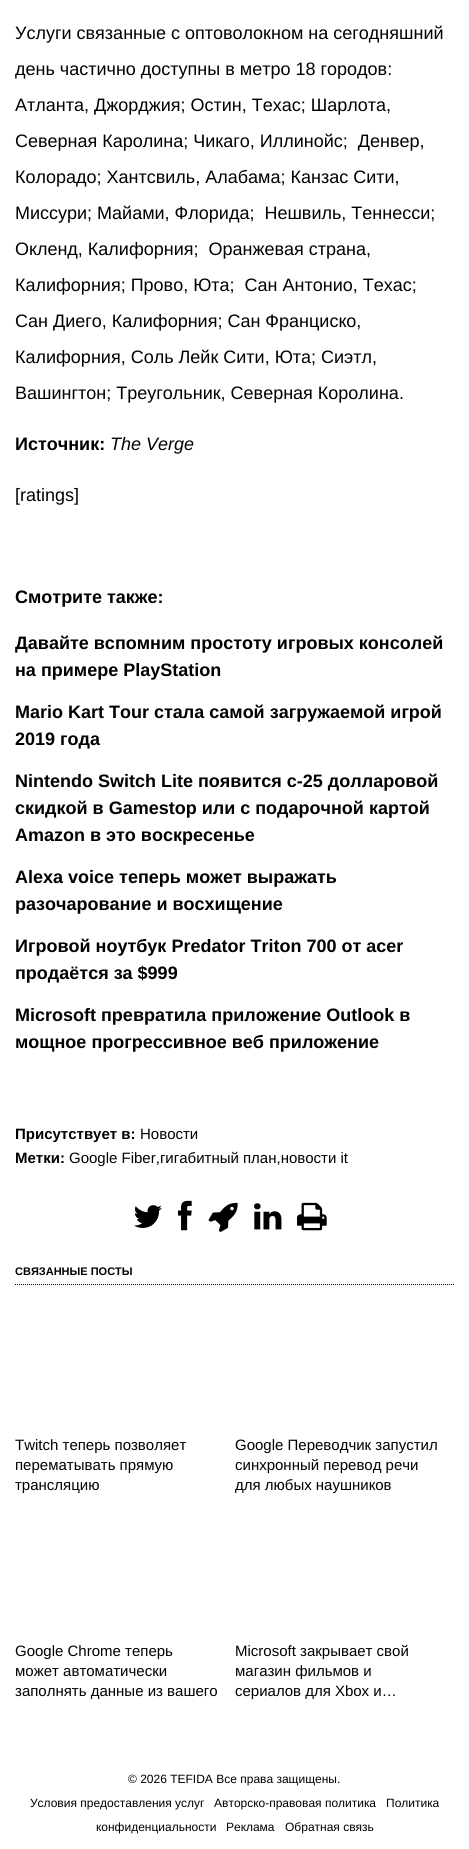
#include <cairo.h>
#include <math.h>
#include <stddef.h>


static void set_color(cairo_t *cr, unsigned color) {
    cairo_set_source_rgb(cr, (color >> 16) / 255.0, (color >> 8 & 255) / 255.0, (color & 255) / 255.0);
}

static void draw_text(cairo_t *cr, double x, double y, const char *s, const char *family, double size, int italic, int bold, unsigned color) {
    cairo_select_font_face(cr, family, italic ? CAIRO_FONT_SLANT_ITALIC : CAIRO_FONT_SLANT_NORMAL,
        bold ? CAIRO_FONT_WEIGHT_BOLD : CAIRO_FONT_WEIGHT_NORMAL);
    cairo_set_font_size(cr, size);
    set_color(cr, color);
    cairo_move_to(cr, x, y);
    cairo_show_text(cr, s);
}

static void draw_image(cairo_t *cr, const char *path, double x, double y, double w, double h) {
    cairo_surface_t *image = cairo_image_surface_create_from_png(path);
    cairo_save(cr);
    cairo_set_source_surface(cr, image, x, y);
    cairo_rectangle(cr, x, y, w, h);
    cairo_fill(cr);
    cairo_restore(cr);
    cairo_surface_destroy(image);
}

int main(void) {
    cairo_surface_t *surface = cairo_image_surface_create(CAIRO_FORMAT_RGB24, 469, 1849);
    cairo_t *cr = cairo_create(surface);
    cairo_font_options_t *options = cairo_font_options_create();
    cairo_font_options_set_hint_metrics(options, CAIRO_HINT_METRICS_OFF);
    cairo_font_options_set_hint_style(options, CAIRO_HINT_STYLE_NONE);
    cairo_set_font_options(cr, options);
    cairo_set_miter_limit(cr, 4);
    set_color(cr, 0xFFFFFF);
    cairo_paint(cr);
    draw_text(cr, 15, 39, "Услуги связанные с оптоволокном на сегодняшний", "Liberation Sans", 18, 0, 0, 0x000000);
    draw_text(cr, 15, 75, "день частично доступны в метро 18 городов:", "Liberation Sans", 18, 0, 0, 0x000000);
    draw_text(cr, 15, 111, "Атланта, Джорджия; Остин, Техас; Шарлота,", "Liberation Sans", 18, 0, 0, 0x000000);
    draw_text(cr, 15, 147, "Северная Каролина; Чикаго, Иллинойс;  Денвер,", "Liberation Sans", 18, 0, 0, 0x000000);
    draw_text(cr, 15, 183, "Колорадо; Хантсвиль, Алабама; Канзас Сити,", "Liberation Sans", 18, 0, 0, 0x000000);
    draw_text(cr, 15, 219, "Миссури; Майами, Флорида;  Нешвиль, Теннесси;", "Liberation Sans", 18, 0, 0, 0x000000);
    draw_text(cr, 15, 255, "Окленд, Калифорния;  Оранжевая страна,", "Liberation Sans", 18, 0, 0, 0x000000);
    draw_text(cr, 15, 291, "Калифорния; Прово, Юта;  Сан Антонио, Техас;", "Liberation Sans", 18, 0, 0, 0x000000);
    draw_text(cr, 15, 327, "Сан Диего, Калифорния; Сан Франциско,", "Liberation Sans", 18, 0, 0, 0x000000);
    draw_text(cr, 15, 363, "Калифорния, Соль Лейк Сити, Юта; Сиэтл,", "Liberation Sans", 18, 0, 0, 0x000000);
    draw_text(cr, 15, 399, "Вашингтон; Треугольник, Северная Королина.", "Liberation Sans", 18, 0, 0, 0x000000);
    draw_text(cr, 15, 450, "Источник:", "Liberation Sans", 18, 0, 1, 0x000000);
    draw_text(cr, 110, 450, "The Verge", "Liberation Sans", 18, 1, 0, 0x000000);
    draw_text(cr, 15, 501, "[ratings]", "Liberation Sans", 18, 0, 0, 0x000000);
    draw_text(cr, 15, 603, "Смотрите также:", "Liberation Sans", 18, 0, 1, 0x000000);
    draw_text(cr, 15, 649, "Давайте вспомним простоту игровых консолей", "Liberation Sans", 18, 0, 1, 0x000000);
    draw_text(cr, 15, 676, "на примере PlayStation", "Liberation Sans", 18, 0, 1, 0x000000);
    draw_text(cr, 15, 718, "Mario Kart Tour стала самой загружаемой игрой", "Liberation Sans", 18, 0, 1, 0x000000);
    draw_text(cr, 15, 745, "2019 года", "Liberation Sans", 18, 0, 1, 0x000000);
    draw_text(cr, 15, 787, "Nintendo Switch Lite появится с-25 долларовой", "Liberation Sans", 18, 0, 1, 0x000000);
    draw_text(cr, 15, 814, "скидкой в Gamestop или с подарочной картой", "Liberation Sans", 18, 0, 1, 0x000000);
    draw_text(cr, 15, 841, "Amazon в это воскресенье", "Liberation Sans", 18, 0, 1, 0x000000);
    draw_text(cr, 15, 883, "Alexa voice теперь может выражать", "Liberation Sans", 18, 0, 1, 0x000000);
    draw_text(cr, 15, 910, "разочарование и восхищение", "Liberation Sans", 18, 0, 1, 0x000000);
    draw_text(cr, 15, 952, "Игровой ноутбук Predator Triton 700 от acer", "Liberation Sans", 18, 0, 1, 0x000000);
    draw_text(cr, 15, 979, "продаётся за $999", "Liberation Sans", 18, 0, 1, 0x000000);
    draw_text(cr, 15, 1021, "Microsoft превратила приложение Outlook в", "Liberation Sans", 18, 0, 1, 0x000000);
    draw_text(cr, 15, 1048, "мощное прогрессивное веб приложение", "Liberation Sans", 18, 0, 1, 0x000000);
    draw_text(cr, 15, 1139, "Присутствует в:", "Liberation Sans", 15, 0, 1, 0x000000);
    draw_text(cr, 140, 1139, "Новости", "Liberation Sans", 15, 0, 0, 0x000000);
    draw_text(cr, 15, 1163, "Метки:", "Liberation Sans", 15, 0, 1, 0x000000);
    draw_text(cr, 69, 1163, "Google Fiber,гигабитный план,новости it", "Liberation Sans", 15, 0, 0, 0x000000);
    draw_image(cr, "assets/img1.png", 134, 1205, 28, 23);
    draw_image(cr, "assets/img2.png", 178, 1200, 14, 31);
    draw_image(cr, "assets/img3.png", 208, 1202, 30, 30);
    draw_image(cr, "assets/img4.png", 254, 1203, 28, 27);
    draw_image(cr, "assets/img5.png", 297, 1202, 30, 29);
    cairo_new_path(cr);
    cairo_move_to(cr, 15, 1284.5);
    cairo_line_to(cr, 454, 1284.5);
    cairo_set_line_width(cr, 1);
    cairo_set_dash(cr, (double[]){1, 1}, 2, 0);
    cairo_stroke(cr);
    draw_text(cr, 15, 1275, "СВЯЗАННЫЕ ПОСТЫ", "Liberation Sans", 11, 0, 1, 0x000000);
    draw_text(cr, 15, 1450, "Twitch теперь позволяет", "Liberation Sans", 15, 0, 0, 0x000000);
    draw_text(cr, 15, 1470, "перематывать прямую", "Liberation Sans", 15, 0, 0, 0x000000);
    draw_text(cr, 15, 1490, "трансляцию", "Liberation Sans", 15, 0, 0, 0x000000);
    draw_text(cr, 235, 1450, "Google Переводчик запустил", "Liberation Sans", 15, 0, 0, 0x000000);
    draw_text(cr, 235, 1470, "синхронный перевод речи", "Liberation Sans", 15, 0, 0, 0x000000);
    cairo_save(cr);
    cairo_rectangle(cr, 235, 1435, 204, 60);
    cairo_clip(cr);
    draw_text(cr, 235, 1490, "для любых наушников", "Liberation Sans", 15, 0, 0, 0x000000);
    cairo_restore(cr);
    draw_text(cr, 15, 1656, "Google Chrome теперь", "Liberation Sans", 15, 0, 0, 0x000000);
    draw_text(cr, 15, 1676, "может автоматически", "Liberation Sans", 15, 0, 0, 0x000000);
    draw_text(cr, 15, 1696, "заполнять данные из вашего", "Liberation Sans", 15, 0, 0, 0x000000);
    draw_text(cr, 235, 1656, "Microsoft закрывает свой", "Liberation Sans", 15, 0, 0, 0x000000);
    draw_text(cr, 235, 1676, "магазин фильмов и", "Liberation Sans", 15, 0, 0, 0x000000);
    draw_text(cr, 235, 1696, "сериалов для Xbox и…", "Liberation Sans", 15, 0, 0, 0x000000);
    draw_text(cr, 128, 1783, "© 2026 TEFIDA Все права защищены.", "Liberation Sans", 12, 0, 0, 0x000000);
    draw_text(cr, 30, 1807, "Условия предоставления услуг", "Liberation Sans", 12, 0, 0, 0x000000);
    draw_text(cr, 214, 1807, "Авторско-правовая политика", "Liberation Sans", 12, 0, 0, 0x000000);
    draw_text(cr, 386, 1807, "Политика", "Liberation Sans", 12, 0, 0, 0x000000);
    draw_text(cr, 96, 1831, "конфиденциальности", "Liberation Sans", 12, 0, 0, 0x000000);
    draw_text(cr, 226, 1831, "Реклама", "Liberation Sans", 12, 0, 0, 0x000000);
    draw_text(cr, 285, 1831, "Обратная связь", "Liberation Sans", 12, 0, 0, 0x000000);
    cairo_surface_write_to_png(surface, "output.png");
    cairo_font_options_destroy(options);
    cairo_destroy(cr);
    cairo_surface_destroy(surface);
    return 0;
}
